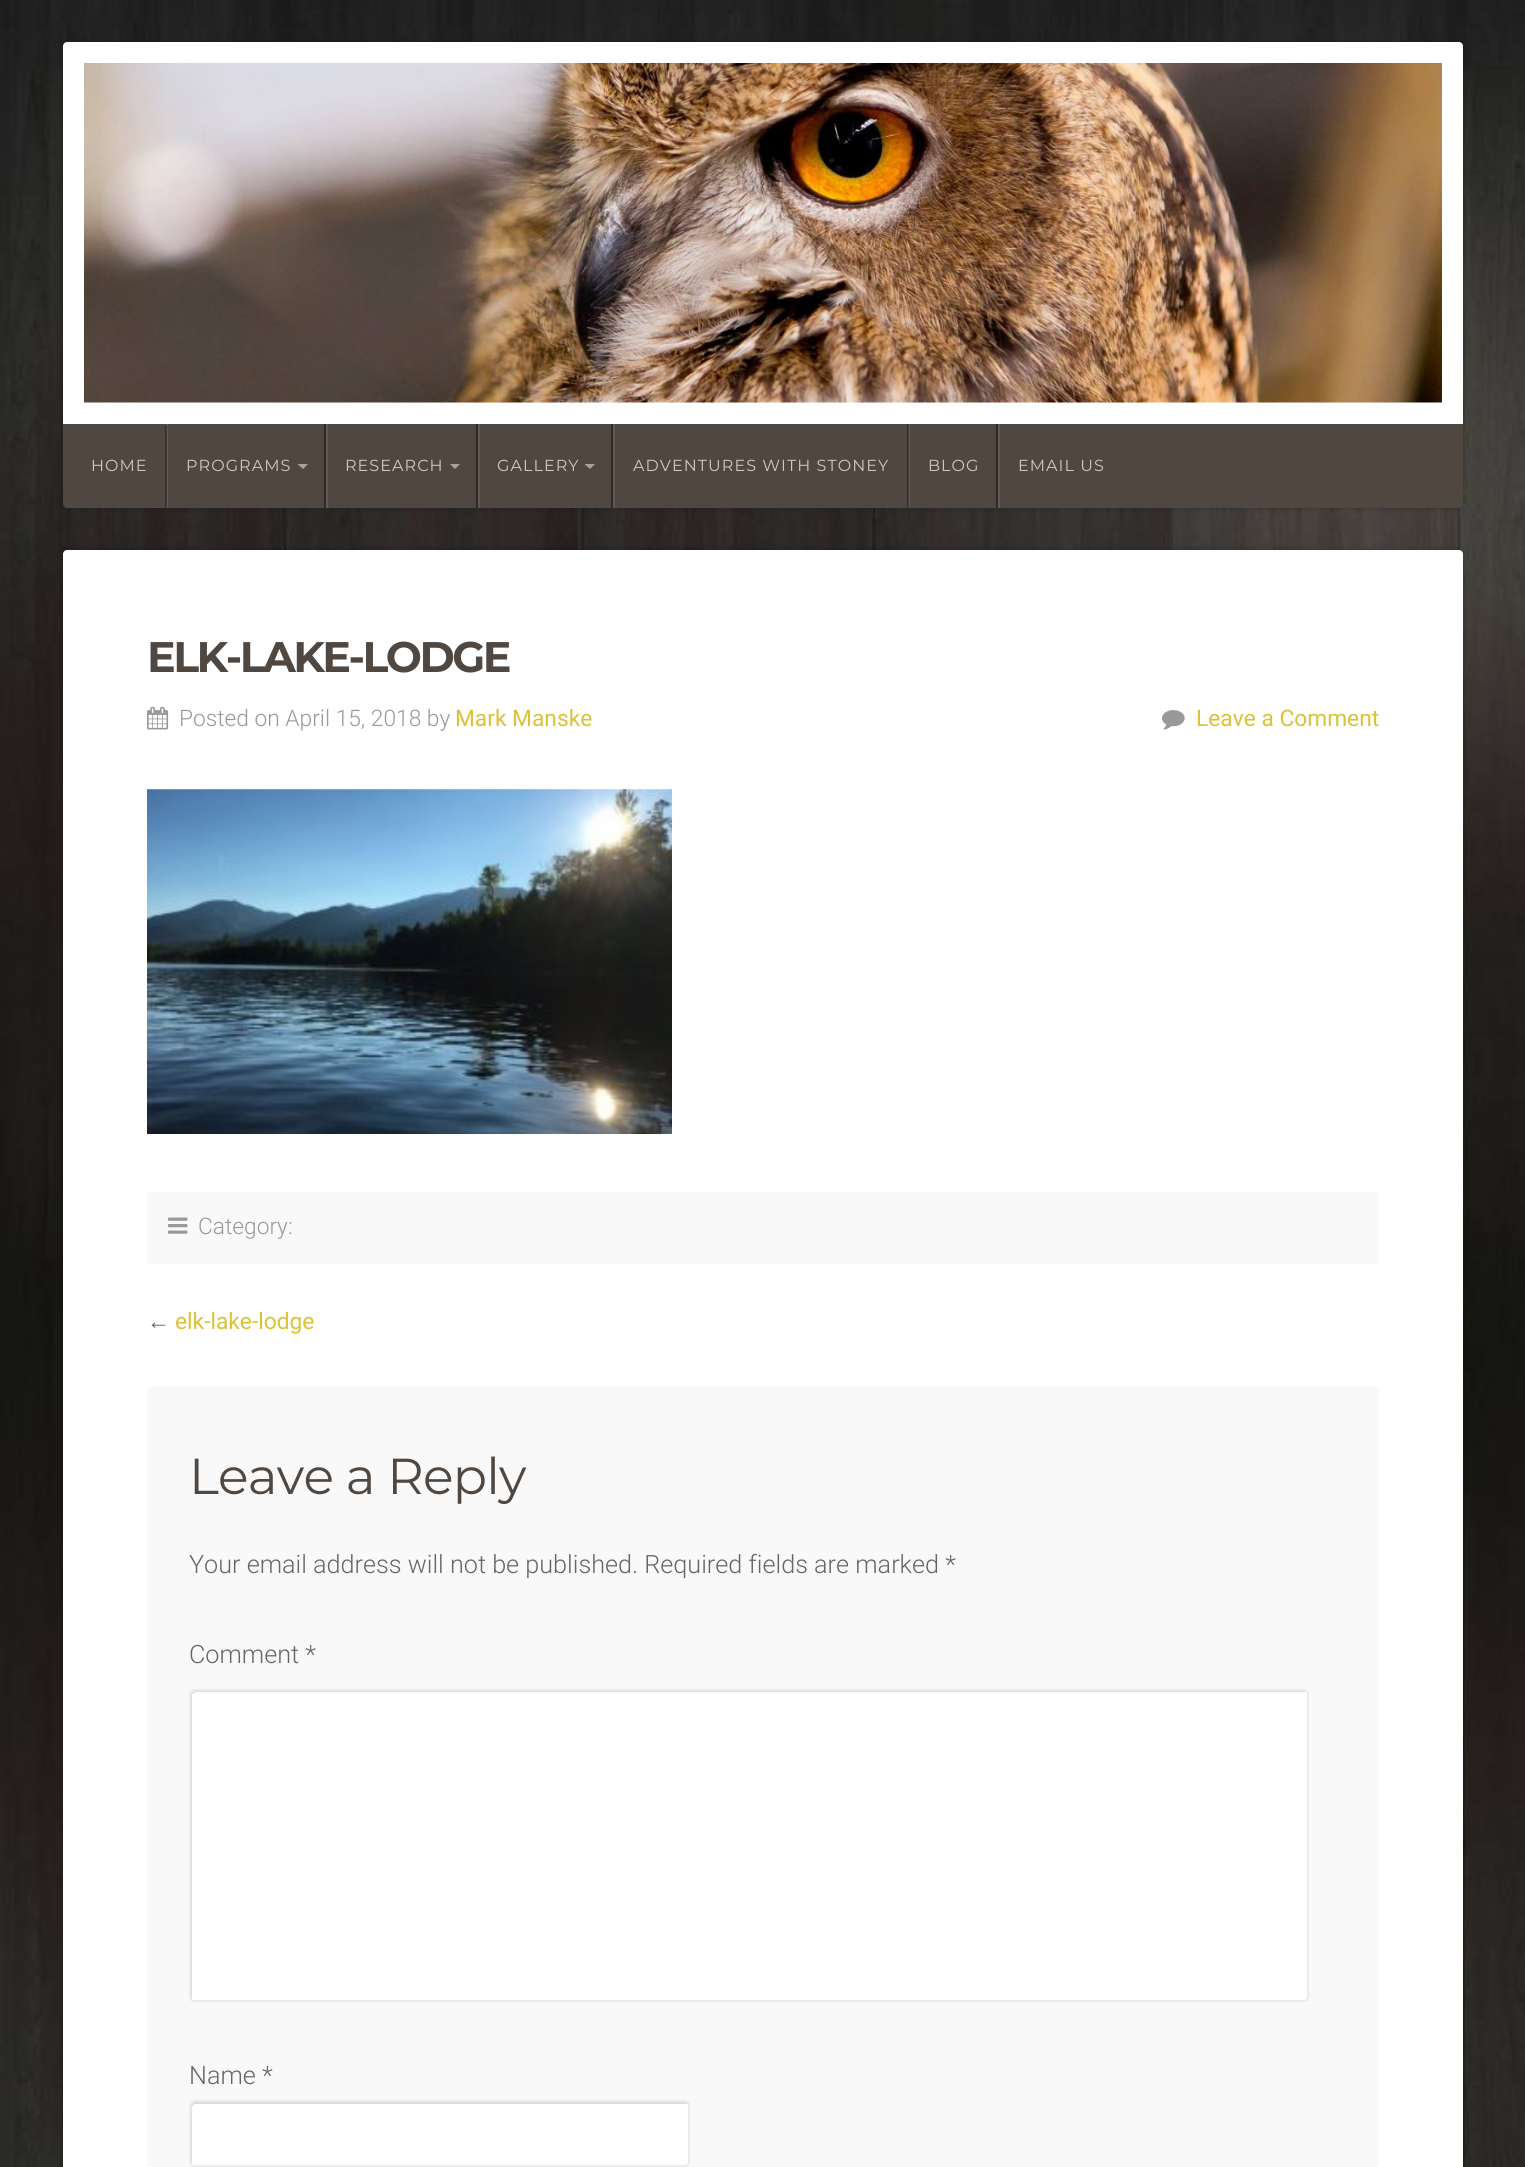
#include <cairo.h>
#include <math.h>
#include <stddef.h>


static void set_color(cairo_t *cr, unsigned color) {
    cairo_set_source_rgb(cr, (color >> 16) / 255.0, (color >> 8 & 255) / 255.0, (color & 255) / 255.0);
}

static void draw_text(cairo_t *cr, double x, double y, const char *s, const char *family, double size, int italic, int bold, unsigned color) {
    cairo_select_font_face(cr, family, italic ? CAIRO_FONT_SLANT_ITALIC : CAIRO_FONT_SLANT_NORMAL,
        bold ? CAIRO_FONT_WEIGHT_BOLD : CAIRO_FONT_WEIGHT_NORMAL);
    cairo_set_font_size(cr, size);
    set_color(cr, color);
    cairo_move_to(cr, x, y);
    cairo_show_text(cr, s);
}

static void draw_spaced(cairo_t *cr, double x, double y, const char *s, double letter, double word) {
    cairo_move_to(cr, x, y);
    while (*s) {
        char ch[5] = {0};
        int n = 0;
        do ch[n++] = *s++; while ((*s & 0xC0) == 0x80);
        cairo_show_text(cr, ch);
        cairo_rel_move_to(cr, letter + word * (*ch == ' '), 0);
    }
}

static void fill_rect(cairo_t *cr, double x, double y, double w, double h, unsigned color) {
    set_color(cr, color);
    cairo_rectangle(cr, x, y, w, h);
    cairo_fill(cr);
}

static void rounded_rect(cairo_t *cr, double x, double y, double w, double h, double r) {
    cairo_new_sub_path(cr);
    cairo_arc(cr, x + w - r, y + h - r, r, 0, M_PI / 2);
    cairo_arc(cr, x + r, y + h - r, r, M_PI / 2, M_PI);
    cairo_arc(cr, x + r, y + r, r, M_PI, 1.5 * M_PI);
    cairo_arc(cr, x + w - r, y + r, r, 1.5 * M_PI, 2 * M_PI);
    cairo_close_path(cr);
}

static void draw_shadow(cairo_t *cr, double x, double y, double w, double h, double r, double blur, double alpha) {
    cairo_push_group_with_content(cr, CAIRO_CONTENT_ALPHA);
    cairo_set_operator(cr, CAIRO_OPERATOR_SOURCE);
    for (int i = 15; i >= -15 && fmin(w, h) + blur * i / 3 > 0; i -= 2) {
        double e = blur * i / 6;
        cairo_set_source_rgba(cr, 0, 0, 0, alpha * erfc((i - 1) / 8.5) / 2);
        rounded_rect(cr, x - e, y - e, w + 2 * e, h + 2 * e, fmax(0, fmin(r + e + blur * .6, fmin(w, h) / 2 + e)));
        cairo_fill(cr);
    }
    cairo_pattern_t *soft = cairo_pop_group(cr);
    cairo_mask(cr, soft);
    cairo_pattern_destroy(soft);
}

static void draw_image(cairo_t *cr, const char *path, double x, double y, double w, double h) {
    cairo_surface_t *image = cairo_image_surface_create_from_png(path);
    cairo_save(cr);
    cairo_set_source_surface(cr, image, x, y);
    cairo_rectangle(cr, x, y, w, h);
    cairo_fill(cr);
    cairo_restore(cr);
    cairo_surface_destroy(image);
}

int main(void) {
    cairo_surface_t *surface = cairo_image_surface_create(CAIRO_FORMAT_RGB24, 1525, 2167);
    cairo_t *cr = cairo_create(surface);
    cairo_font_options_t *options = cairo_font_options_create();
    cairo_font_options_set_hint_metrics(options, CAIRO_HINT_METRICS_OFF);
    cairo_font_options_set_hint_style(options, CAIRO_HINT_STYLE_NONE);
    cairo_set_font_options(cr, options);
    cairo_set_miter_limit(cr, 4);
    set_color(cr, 0xFFFFFF);
    cairo_paint(cr);
    draw_image(cr, "assets/img1.png", 0, 0, 1525, 2167);
    set_color(cr, 0x000000);
    draw_shadow(cr, 63, 42, 1400, 466, 4, 3.5, 0.24);
    set_color(cr, 0xFFFFFF);
    cairo_new_path(cr);
    cairo_move_to(cr, 67, 42);
    cairo_line_to(cr, 1459, 42);
    cairo_curve_to(cr, 1461, 42, 1463, 44, 1463, 46);
    cairo_line_to(cr, 1463, 424);
    cairo_line_to(cr, 63, 424);
    cairo_line_to(cr, 63, 46);
    cairo_curve_to(cr, 63, 44, 65, 42, 67, 42);
    cairo_close_path(cr);
    cairo_fill(cr);
    draw_image(cr, "assets/img2.png", 84, 63, 1358, 340);
    set_color(cr, 0x504741);
    cairo_new_path(cr);
    cairo_move_to(cr, 63, 424);
    cairo_line_to(cr, 1463, 424);
    cairo_line_to(cr, 1463, 504);
    cairo_curve_to(cr, 1463, 506, 1461, 508, 1459, 508);
    cairo_line_to(cr, 67, 508);
    cairo_curve_to(cr, 65, 508, 63, 506, 63, 504);
    cairo_close_path(cr);
    cairo_fill(cr);
    fill_rect(cr, 165, 425, 2, 83, 0x302B27);
    cairo_select_font_face(cr, "Montserrat", CAIRO_FONT_SLANT_NORMAL, CAIRO_FONT_WEIGHT_NORMAL);
    cairo_set_font_size(cr, 16);
    set_color(cr, 0xCBC8C6);
    draw_spaced(cr, 91, 471, "HOME", 1.05, 0);
    fill_rect(cr, 324, 424, 2, 84, 0x302B27);
    cairo_set_source_rgba(cr, 1, 1, 1, 0.1);
    cairo_rectangle(cr, 166, 424, 2, 84);
    cairo_fill(cr);
    set_color(cr, 0xCBC8C6);
    draw_spaced(cr, 186, 471, "PROGRAMS", 1.05, 0);
    set_color(cr, 0xA8A3A0);
    cairo_new_path(cr);
    cairo_move_to(cr, 297.5, 464);
    cairo_line_to(cr, 308, 464);
    cairo_line_to(cr, 303, 469);
    cairo_close_path(cr);
    cairo_fill(cr);
    fill_rect(cr, 476, 424, 2, 84, 0x302B27);
    fill_rect(cr, 326, 424, 2, 84, 0x625954);
    set_color(cr, 0xCBC8C6);
    draw_spaced(cr, 345, 471, "RESEARCH", 1.05, 0);
    set_color(cr, 0xA8A3A0);
    cairo_new_path(cr);
    cairo_move_to(cr, 450, 464);
    cairo_line_to(cr, 460, 464);
    cairo_line_to(cr, 455, 469);
    cairo_close_path(cr);
    cairo_fill(cr);
    fill_rect(cr, 611, 424, 2, 84, 0x302B27);
    fill_rect(cr, 478, 424, 2, 84, 0x625954);
    set_color(cr, 0xCBC8C6);
    draw_spaced(cr, 497, 471, "GALLERY", 1.05, 0);
    set_color(cr, 0xA8A3A0);
    cairo_new_path(cr);
    cairo_move_to(cr, 584.5, 464);
    cairo_line_to(cr, 595, 464);
    cairo_line_to(cr, 590, 469);
    cairo_close_path(cr);
    cairo_fill(cr);
    fill_rect(cr, 907, 424, 2, 84, 0x302B27);
    fill_rect(cr, 613, 424, 2, 84, 0x625954);
    set_color(cr, 0xCBC8C6);
    draw_spaced(cr, 633, 471, "ADVENTURES WITH STONEY", 1.05, 0);
    fill_rect(cr, 996, 424, 2, 84, 0x302B27);
    cairo_set_source_rgba(cr, 1, 1, 1, 0.1);
    cairo_rectangle(cr, 908, 424, 2, 84);
    cairo_fill(cr);
    set_color(cr, 0xCBC8C6);
    draw_spaced(cr, 928, 471, "BLOG", 1.05, 0);
    fill_rect(cr, 998, 424, 2, 84, 0x625954);
    set_color(cr, 0xCBC8C6);
    draw_spaced(cr, 1018, 471, "EMAIL US", 1.05, 0);
    set_color(cr, 0x000000);
    draw_shadow(cr, 63, 550, 1400, 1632, 4, 3.5, 0.24);
    set_color(cr, 0xFFFFFF);
    rounded_rect(cr, 63, 550, 1400, 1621, 4);
    cairo_fill(cr);
    cairo_select_font_face(cr, "Montserrat", CAIRO_FONT_SLANT_NORMAL, CAIRO_FONT_WEIGHT_BOLD);
    cairo_set_font_size(cr, 42.75);
    set_color(cr, 0x504741);
    draw_spaced(cr, 147, 672, "ELK-LAKE-LODGE", -2.5, 0);
    draw_image(cr, "assets/img3.png", 147, 706, 22, 24);
    draw_text(cr, 179, 726, "Posted on April 15, 2018 by", "Roboto Light", 22.75, 0, 0, 0x999999);
    draw_text(cr, 455, 726, "Mark Manske", "Roboto", 22.75, 0, 0, 0xDBC236);
    draw_image(cr, "assets/img4.png", 1162, 710, 23, 20);
    draw_text(cr, 1196, 726, "Leave a Comment", "Roboto", 22.75, 0, 0, 0xDBC236);
    draw_image(cr, "assets/img5.png", 147, 789, 525, 345);
    set_color(cr, 0xF9F9F9);
    rounded_rect(cr, 147, 1192, 1232, 72, 4);
    cairo_fill(cr);
    draw_image(cr, "assets/img6.png", 168, 1217, 20, 17);
    draw_text(cr, 198, 1234, "Category:", "Roboto Light", 22.75, 0, 0, 0x999999);
    draw_text(cr, 147, 1329, "←", "Liberation Sans", 22.75, 0, 0, 0x666666);
    draw_text(cr, 175, 1329, "elk-lake-lodge", "Roboto", 22.75, 0, 0, 0xDBC236);
    set_color(cr, 0xF9F9F9);
    rounded_rect(cr, 147, 1386, 1232, 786, 5);
    cairo_fill(cr);
    cairo_select_font_face(cr, "Montserrat", CAIRO_FONT_SLANT_NORMAL, CAIRO_FONT_WEIGHT_NORMAL);
    cairo_set_font_size(cr, 50.5);
    set_color(cr, 0x504741);
    draw_spaced(cr, 189, 1494, "Leave a Reply", -0.75, 0);
    draw_text(cr, 189, 1573, "Your email address will not be published. Required fields are marked *", "Roboto Light", 25.2, 0, 0, 0x666666);
    draw_text(cr, 189, 1663, "Comment *", "Roboto Light", 25.2, 0, 0, 0x666666);
    set_color(cr, 0xFFFFFF);
    rounded_rect(cr, 189, 1689, 1120, 313, 5);
    cairo_fill(cr);
    set_color(cr, 0xDDDDDD);
    cairo_new_path(cr);
    cairo_move_to(cr, 196, 1692);
    cairo_line_to(cr, 1306, 1692);
    cairo_curve_to(cr, 1305, 1691, 1304, 1691, 1303, 1691);
    cairo_line_to(cr, 195, 1691);
    cairo_curve_to(cr, 193, 1691, 191, 1693, 191, 1695);
    cairo_line_to(cr, 191, 1996);
    cairo_curve_to(cr, 191, 1997, 191, 1998, 192, 1999);
    cairo_line_to(cr, 192, 1696);
    cairo_curve_to(cr, 192, 1694, 194, 1692, 196, 1692);
    cairo_close_path(cr);
    cairo_fill(cr);
    rounded_rect(cr, 190, 1690, 1118, 311, 4);
    cairo_set_source_rgba(cr, 0, 0, 0, 0.08);
    cairo_stroke(cr);
    draw_text(cr, 189, 2084, "Name *", "Roboto Light", 25.2, 0, 0, 0x666666);
    set_color(cr, 0xFFFFFF);
    rounded_rect(cr, 189, 2100, 501, 67, 5);
    cairo_fill(cr);
    set_color(cr, 0xDDDDDD);
    cairo_new_path(cr);
    cairo_move_to(cr, 196, 2104);
    cairo_line_to(cr, 688, 2104);
    cairo_curve_to(cr, 687, 2103, 686, 2102, 684, 2102);
    cairo_line_to(cr, 195, 2102);
    cairo_curve_to(cr, 193, 2102, 191, 2104, 191, 2106);
    cairo_line_to(cr, 191, 2161);
    cairo_curve_to(cr, 191, 2162, 191, 2163, 192, 2164);
    cairo_line_to(cr, 192, 2116);
    cairo_curve_to(cr, 192, 2113, 190, 2104, 196, 2104);
    cairo_close_path(cr);
    cairo_fill(cr);
    rounded_rect(cr, 190, 2101, 499, 65, 4);
    cairo_set_source_rgba(cr, 0, 0, 0, 0.08);
    cairo_stroke(cr);
    cairo_surface_write_to_png(surface, "output.png");
    cairo_font_options_destroy(options);
    cairo_destroy(cr);
    cairo_surface_destroy(surface);
    return 0;
}
